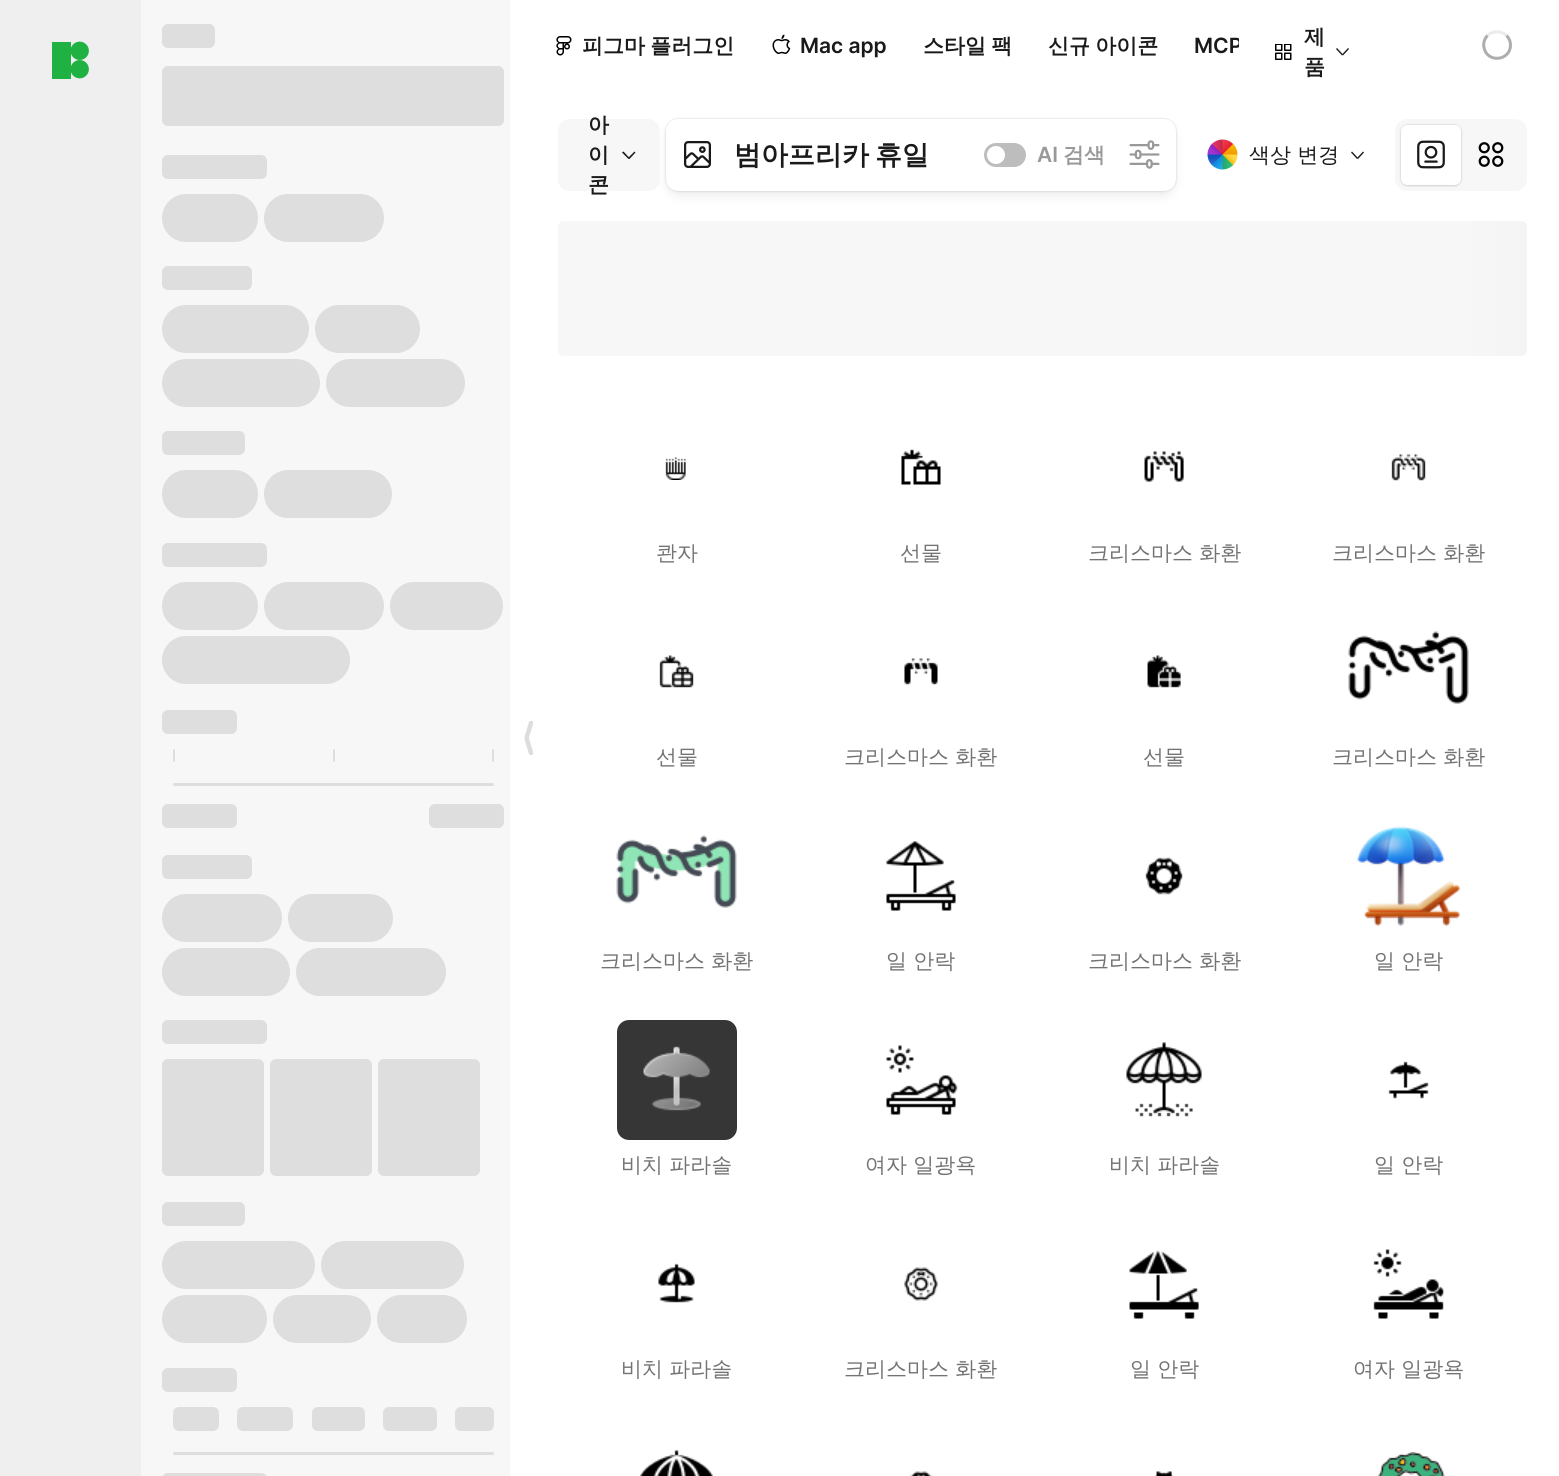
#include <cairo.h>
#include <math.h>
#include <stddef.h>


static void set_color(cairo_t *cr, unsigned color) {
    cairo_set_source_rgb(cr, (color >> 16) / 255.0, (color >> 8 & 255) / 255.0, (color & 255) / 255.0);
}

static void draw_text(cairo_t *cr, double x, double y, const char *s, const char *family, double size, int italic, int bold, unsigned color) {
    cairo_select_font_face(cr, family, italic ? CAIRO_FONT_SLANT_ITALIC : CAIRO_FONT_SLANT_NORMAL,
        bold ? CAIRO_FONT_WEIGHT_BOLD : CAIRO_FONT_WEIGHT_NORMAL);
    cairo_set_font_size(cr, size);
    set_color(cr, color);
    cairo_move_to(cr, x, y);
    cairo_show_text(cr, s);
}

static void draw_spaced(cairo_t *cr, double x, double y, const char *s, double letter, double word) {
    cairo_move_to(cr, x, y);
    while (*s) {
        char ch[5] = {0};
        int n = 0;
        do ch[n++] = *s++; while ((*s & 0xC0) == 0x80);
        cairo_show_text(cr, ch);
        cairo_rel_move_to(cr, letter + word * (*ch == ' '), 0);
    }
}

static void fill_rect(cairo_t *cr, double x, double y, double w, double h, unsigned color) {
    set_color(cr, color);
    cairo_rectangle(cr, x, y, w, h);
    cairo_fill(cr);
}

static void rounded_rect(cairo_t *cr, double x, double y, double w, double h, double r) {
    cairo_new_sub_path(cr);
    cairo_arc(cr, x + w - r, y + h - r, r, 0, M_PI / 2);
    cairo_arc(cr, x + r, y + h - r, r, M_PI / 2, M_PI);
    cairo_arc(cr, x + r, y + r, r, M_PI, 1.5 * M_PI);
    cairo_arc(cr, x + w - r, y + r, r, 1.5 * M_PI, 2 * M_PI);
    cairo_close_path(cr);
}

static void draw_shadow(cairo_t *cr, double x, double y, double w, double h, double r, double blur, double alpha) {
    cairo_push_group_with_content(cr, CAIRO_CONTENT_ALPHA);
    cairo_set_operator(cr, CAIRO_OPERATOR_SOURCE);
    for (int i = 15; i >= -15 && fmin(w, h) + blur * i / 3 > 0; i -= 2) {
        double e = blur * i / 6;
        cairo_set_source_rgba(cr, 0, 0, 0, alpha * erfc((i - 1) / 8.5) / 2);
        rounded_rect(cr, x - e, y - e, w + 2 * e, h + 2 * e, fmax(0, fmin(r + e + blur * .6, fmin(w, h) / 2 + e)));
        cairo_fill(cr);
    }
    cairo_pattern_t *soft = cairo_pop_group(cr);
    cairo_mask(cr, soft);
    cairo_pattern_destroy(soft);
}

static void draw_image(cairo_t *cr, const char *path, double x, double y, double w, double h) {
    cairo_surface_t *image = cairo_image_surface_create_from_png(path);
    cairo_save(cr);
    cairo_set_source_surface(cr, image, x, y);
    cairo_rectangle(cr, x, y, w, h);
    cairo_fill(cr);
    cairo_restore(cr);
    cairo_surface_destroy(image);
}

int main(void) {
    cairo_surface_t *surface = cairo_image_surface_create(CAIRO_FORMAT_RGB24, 1559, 1476);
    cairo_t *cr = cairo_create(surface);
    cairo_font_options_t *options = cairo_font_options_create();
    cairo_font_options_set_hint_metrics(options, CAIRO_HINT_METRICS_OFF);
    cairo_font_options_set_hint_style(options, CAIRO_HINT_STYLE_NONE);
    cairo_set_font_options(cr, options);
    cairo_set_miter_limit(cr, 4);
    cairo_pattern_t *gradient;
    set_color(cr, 0xFFFFFF);
    cairo_paint(cr);
    fill_rect(cr, 0, 0, 141, 1476, 0xEFEFEF);
    draw_image(cr, "assets/img1.png", 52, 41, 37, 38);
    fill_rect(cr, 141, 0, 369, 1476, 0xF7F7F7);
    gradient = cairo_pattern_create_linear(-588, 102, 912, 102);
    cairo_pattern_add_color_stop_rgba(gradient, 0.1, 0.871, 0.871, 0.871, 1);
    cairo_pattern_add_color_stop_rgba(gradient, 0.18, 0.922, 0.922, 0.922, 1);
    cairo_pattern_add_color_stop_rgba(gradient, 0.33, 0.871, 0.871, 0.871, 1);
    cairo_set_source(cr, gradient);
    cairo_pattern_destroy(gradient);
    rounded_rect(cr, 162, 24, 53, 24, 6);
    cairo_fill(cr);
    gradient = cairo_pattern_create_linear(-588, 144, 912, 144);
    cairo_pattern_add_color_stop_rgba(gradient, 0.1, 0.871, 0.871, 0.871, 1);
    cairo_pattern_add_color_stop_rgba(gradient, 0.18, 0.922, 0.922, 0.922, 1);
    cairo_pattern_add_color_stop_rgba(gradient, 0.33, 0.871, 0.871, 0.871, 1);
    cairo_set_source(cr, gradient);
    cairo_pattern_destroy(gradient);
    rounded_rect(cr, 162, 66, 342, 60, 6);
    cairo_fill(cr);
    gradient = cairo_pattern_create_linear(-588, 233, 912, 232);
    cairo_pattern_add_color_stop_rgba(gradient, 0.1, 0.871, 0.871, 0.871, 1);
    cairo_pattern_add_color_stop_rgba(gradient, 0.18, 0.922, 0.922, 0.922, 1);
    cairo_pattern_add_color_stop_rgba(gradient, 0.33, 0.871, 0.871, 0.871, 1);
    cairo_set_source(cr, gradient);
    cairo_pattern_destroy(gradient);
    rounded_rect(cr, 162, 155, 105, 24, 6);
    cairo_fill(cr);
    gradient = cairo_pattern_create_linear(-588, 272, 912, 271);
    cairo_pattern_add_color_stop_rgba(gradient, 0.1, 0.871, 0.871, 0.871, 1);
    cairo_pattern_add_color_stop_rgba(gradient, 0.18, 0.922, 0.922, 0.922, 1);
    cairo_pattern_add_color_stop_rgba(gradient, 0.33, 0.871, 0.871, 0.871, 1);
    cairo_set_source(cr, gradient);
    cairo_pattern_destroy(gradient);
    rounded_rect(cr, 162, 194, 96, 48, 24);
    cairo_fill(cr);
    gradient = cairo_pattern_create_linear(-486, 272, 1014, 271);
    cairo_pattern_add_color_stop_rgba(gradient, 0.1, 0.871, 0.871, 0.871, 1);
    cairo_pattern_add_color_stop_rgba(gradient, 0.18, 0.922, 0.922, 0.922, 1);
    cairo_pattern_add_color_stop_rgba(gradient, 0.33, 0.871, 0.871, 0.871, 1);
    cairo_set_source(cr, gradient);
    cairo_pattern_destroy(gradient);
    rounded_rect(cr, 264, 194, 120, 48, 24);
    cairo_fill(cr);
    gradient = cairo_pattern_create_linear(-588, 344, 912, 343);
    cairo_pattern_add_color_stop_rgba(gradient, 0.1, 0.871, 0.871, 0.871, 1);
    cairo_pattern_add_color_stop_rgba(gradient, 0.18, 0.922, 0.922, 0.922, 1);
    cairo_pattern_add_color_stop_rgba(gradient, 0.33, 0.871, 0.871, 0.871, 1);
    cairo_set_source(cr, gradient);
    cairo_pattern_destroy(gradient);
    rounded_rect(cr, 162, 266, 90, 24, 6);
    cairo_fill(cr);
    gradient = cairo_pattern_create_linear(-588, 383, 912, 382);
    cairo_pattern_add_color_stop_rgba(gradient, 0.1, 0.871, 0.871, 0.871, 1);
    cairo_pattern_add_color_stop_rgba(gradient, 0.18, 0.922, 0.922, 0.922, 1);
    cairo_pattern_add_color_stop_rgba(gradient, 0.33, 0.871, 0.871, 0.871, 1);
    cairo_set_source(cr, gradient);
    cairo_pattern_destroy(gradient);
    rounded_rect(cr, 162, 305, 147, 48, 24);
    cairo_fill(cr);
    gradient = cairo_pattern_create_linear(-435, 383, 1065, 382);
    cairo_pattern_add_color_stop_rgba(gradient, 0.1, 0.871, 0.871, 0.871, 1);
    cairo_pattern_add_color_stop_rgba(gradient, 0.18, 0.922, 0.922, 0.922, 1);
    cairo_pattern_add_color_stop_rgba(gradient, 0.33, 0.871, 0.871, 0.871, 1);
    cairo_set_source(cr, gradient);
    cairo_pattern_destroy(gradient);
    rounded_rect(cr, 315, 305, 105, 48, 24);
    cairo_fill(cr);
    gradient = cairo_pattern_create_linear(-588, 437, 912, 436);
    cairo_pattern_add_color_stop_rgba(gradient, 0.1, 0.871, 0.871, 0.871, 1);
    cairo_pattern_add_color_stop_rgba(gradient, 0.18, 0.922, 0.922, 0.922, 1);
    cairo_pattern_add_color_stop_rgba(gradient, 0.33, 0.871, 0.871, 0.871, 1);
    cairo_set_source(cr, gradient);
    cairo_pattern_destroy(gradient);
    rounded_rect(cr, 162, 359, 158, 48, 24);
    cairo_fill(cr);
    gradient = cairo_pattern_create_linear(-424, 437, 1076, 436);
    cairo_pattern_add_color_stop_rgba(gradient, 0.1, 0.871, 0.871, 0.871, 1);
    cairo_pattern_add_color_stop_rgba(gradient, 0.18, 0.922, 0.922, 0.922, 1);
    cairo_pattern_add_color_stop_rgba(gradient, 0.33, 0.871, 0.871, 0.871, 1);
    cairo_set_source(cr, gradient);
    cairo_pattern_destroy(gradient);
    rounded_rect(cr, 326, 359, 139, 48, 24);
    cairo_fill(cr);
    gradient = cairo_pattern_create_linear(-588, 509, 912, 508);
    cairo_pattern_add_color_stop_rgba(gradient, 0.1, 0.871, 0.871, 0.871, 1);
    cairo_pattern_add_color_stop_rgba(gradient, 0.18, 0.922, 0.922, 0.922, 1);
    cairo_pattern_add_color_stop_rgba(gradient, 0.33, 0.871, 0.871, 0.871, 1);
    cairo_set_source(cr, gradient);
    cairo_pattern_destroy(gradient);
    rounded_rect(cr, 162, 431, 83, 24, 6);
    cairo_fill(cr);
    gradient = cairo_pattern_create_linear(-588, 548, 912, 547);
    cairo_pattern_add_color_stop_rgba(gradient, 0.1, 0.871, 0.871, 0.871, 1);
    cairo_pattern_add_color_stop_rgba(gradient, 0.18, 0.922, 0.922, 0.922, 1);
    cairo_pattern_add_color_stop_rgba(gradient, 0.33, 0.871, 0.871, 0.871, 1);
    cairo_set_source(cr, gradient);
    cairo_pattern_destroy(gradient);
    rounded_rect(cr, 162, 470, 96, 48, 24);
    cairo_fill(cr);
    gradient = cairo_pattern_create_linear(-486, 548, 1014, 547);
    cairo_pattern_add_color_stop_rgba(gradient, 0.1, 0.871, 0.871, 0.871, 1);
    cairo_pattern_add_color_stop_rgba(gradient, 0.18, 0.922, 0.922, 0.922, 1);
    cairo_pattern_add_color_stop_rgba(gradient, 0.33, 0.871, 0.871, 0.871, 1);
    cairo_set_source(cr, gradient);
    cairo_pattern_destroy(gradient);
    rounded_rect(cr, 264, 470, 128, 48, 24);
    cairo_fill(cr);
    gradient = cairo_pattern_create_linear(-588, 621, 912, 621);
    cairo_pattern_add_color_stop_rgba(gradient, 0.1, 0.871, 0.871, 0.871, 1);
    cairo_pattern_add_color_stop_rgba(gradient, 0.18, 0.922, 0.922, 0.922, 1);
    cairo_pattern_add_color_stop_rgba(gradient, 0.33, 0.871, 0.871, 0.871, 1);
    cairo_set_source(cr, gradient);
    cairo_pattern_destroy(gradient);
    rounded_rect(cr, 162, 543, 105, 24, 6);
    cairo_fill(cr);
    gradient = cairo_pattern_create_linear(-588, 660, 912, 660);
    cairo_pattern_add_color_stop_rgba(gradient, 0.1, 0.871, 0.871, 0.871, 1);
    cairo_pattern_add_color_stop_rgba(gradient, 0.18, 0.922, 0.922, 0.922, 1);
    cairo_pattern_add_color_stop_rgba(gradient, 0.33, 0.871, 0.871, 0.871, 1);
    cairo_set_source(cr, gradient);
    cairo_pattern_destroy(gradient);
    rounded_rect(cr, 162, 582, 96, 48, 24);
    cairo_fill(cr);
    gradient = cairo_pattern_create_linear(-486, 660, 1014, 660);
    cairo_pattern_add_color_stop_rgba(gradient, 0.1, 0.871, 0.871, 0.871, 1);
    cairo_pattern_add_color_stop_rgba(gradient, 0.18, 0.922, 0.922, 0.922, 1);
    cairo_pattern_add_color_stop_rgba(gradient, 0.33, 0.871, 0.871, 0.871, 1);
    cairo_set_source(cr, gradient);
    cairo_pattern_destroy(gradient);
    rounded_rect(cr, 264, 582, 120, 48, 24);
    cairo_fill(cr);
    gradient = cairo_pattern_create_linear(-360, 660, 1140, 660);
    cairo_pattern_add_color_stop_rgba(gradient, 0.1, 0.871, 0.871, 0.871, 1);
    cairo_pattern_add_color_stop_rgba(gradient, 0.18, 0.922, 0.922, 0.922, 1);
    cairo_pattern_add_color_stop_rgba(gradient, 0.33, 0.871, 0.871, 0.871, 1);
    cairo_set_source(cr, gradient);
    cairo_pattern_destroy(gradient);
    rounded_rect(cr, 390, 582, 113, 48, 24);
    cairo_fill(cr);
    gradient = cairo_pattern_create_linear(-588, 714, 912, 714);
    cairo_pattern_add_color_stop_rgba(gradient, 0.1, 0.871, 0.871, 0.871, 1);
    cairo_pattern_add_color_stop_rgba(gradient, 0.18, 0.922, 0.922, 0.922, 1);
    cairo_pattern_add_color_stop_rgba(gradient, 0.33, 0.871, 0.871, 0.871, 1);
    cairo_set_source(cr, gradient);
    cairo_pattern_destroy(gradient);
    rounded_rect(cr, 162, 636, 188, 48, 24);
    cairo_fill(cr);
    gradient = cairo_pattern_create_linear(-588, 788, 912, 788);
    cairo_pattern_add_color_stop_rgba(gradient, 0.1, 0.871, 0.871, 0.871, 1);
    cairo_pattern_add_color_stop_rgba(gradient, 0.18, 0.922, 0.922, 0.922, 1);
    cairo_pattern_add_color_stop_rgba(gradient, 0.33, 0.871, 0.871, 0.871, 1);
    cairo_set_source(cr, gradient);
    cairo_pattern_destroy(gradient);
    rounded_rect(cr, 162, 710, 75, 24, 6);
    cairo_fill(cr);
    gradient = cairo_pattern_create_linear(-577, 827, 923, 827);
    cairo_pattern_add_color_stop_rgba(gradient, 0.1, 0.871, 0.871, 0.871, 1);
    cairo_pattern_add_color_stop_rgba(gradient, 0.18, 0.922, 0.922, 0.922, 1);
    cairo_pattern_add_color_stop_rgba(gradient, 0.33, 0.871, 0.871, 0.871, 1);
    cairo_set_source(cr, gradient);
    cairo_pattern_destroy(gradient);
    rounded_rect(cr, 173, 749, 2, 13, 1);
    cairo_fill(cr);
    gradient = cairo_pattern_create_linear(-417, 827, 1083, 827);
    cairo_pattern_add_color_stop_rgba(gradient, 0.1, 0.871, 0.871, 0.871, 1);
    cairo_pattern_add_color_stop_rgba(gradient, 0.18, 0.922, 0.922, 0.922, 1);
    cairo_pattern_add_color_stop_rgba(gradient, 0.33, 0.871, 0.871, 0.871, 1);
    cairo_set_source(cr, gradient);
    cairo_pattern_destroy(gradient);
    rounded_rect(cr, 333, 749, 2, 13, 1);
    cairo_fill(cr);
    gradient = cairo_pattern_create_linear(-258, 827, 1242, 827);
    cairo_pattern_add_color_stop_rgba(gradient, 0.1, 0.871, 0.871, 0.871, 1);
    cairo_pattern_add_color_stop_rgba(gradient, 0.18, 0.922, 0.922, 0.922, 1);
    cairo_pattern_add_color_stop_rgba(gradient, 0.33, 0.871, 0.871, 0.871, 1);
    cairo_set_source(cr, gradient);
    cairo_pattern_destroy(gradient);
    rounded_rect(cr, 492, 749, 2, 13, 1);
    cairo_fill(cr);
    gradient = cairo_pattern_create_linear(-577, 861, 923, 861);
    cairo_pattern_add_color_stop_rgba(gradient, 0.1, 0.871, 0.871, 0.871, 1);
    cairo_pattern_add_color_stop_rgba(gradient, 0.18, 0.922, 0.922, 0.922, 1);
    cairo_pattern_add_color_stop_rgba(gradient, 0.33, 0.871, 0.871, 0.871, 1);
    cairo_set_source(cr, gradient);
    cairo_pattern_destroy(gradient);
    rounded_rect(cr, 173, 783, 321, 3, 1.5);
    cairo_fill(cr);
    gradient = cairo_pattern_create_linear(-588, 882, 912, 882);
    cairo_pattern_add_color_stop_rgba(gradient, 0.1, 0.871, 0.871, 0.871, 1);
    cairo_pattern_add_color_stop_rgba(gradient, 0.18, 0.922, 0.922, 0.922, 1);
    cairo_pattern_add_color_stop_rgba(gradient, 0.33, 0.871, 0.871, 0.871, 1);
    cairo_set_source(cr, gradient);
    cairo_pattern_destroy(gradient);
    rounded_rect(cr, 162, 804, 75, 24, 6);
    cairo_fill(cr);
    gradient = cairo_pattern_create_linear(-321, 882, 1179, 882);
    cairo_pattern_add_color_stop_rgba(gradient, 0.1, 0.871, 0.871, 0.871, 1);
    cairo_pattern_add_color_stop_rgba(gradient, 0.18, 0.922, 0.922, 0.922, 1);
    cairo_pattern_add_color_stop_rgba(gradient, 0.33, 0.871, 0.871, 0.871, 1);
    cairo_set_source(cr, gradient);
    cairo_pattern_destroy(gradient);
    rounded_rect(cr, 429, 804, 75, 24, 6);
    cairo_fill(cr);
    gradient = cairo_pattern_create_linear(-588, 933, 912, 933);
    cairo_pattern_add_color_stop_rgba(gradient, 0.1, 0.871, 0.871, 0.871, 1);
    cairo_pattern_add_color_stop_rgba(gradient, 0.18, 0.922, 0.922, 0.922, 1);
    cairo_pattern_add_color_stop_rgba(gradient, 0.33, 0.871, 0.871, 0.871, 1);
    cairo_set_source(cr, gradient);
    cairo_pattern_destroy(gradient);
    rounded_rect(cr, 162, 855, 90, 24, 6);
    cairo_fill(cr);
    gradient = cairo_pattern_create_linear(-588, 972, 912, 972);
    cairo_pattern_add_color_stop_rgba(gradient, 0.1, 0.871, 0.871, 0.871, 1);
    cairo_pattern_add_color_stop_rgba(gradient, 0.18, 0.922, 0.922, 0.922, 1);
    cairo_pattern_add_color_stop_rgba(gradient, 0.33, 0.871, 0.871, 0.871, 1);
    cairo_set_source(cr, gradient);
    cairo_pattern_destroy(gradient);
    rounded_rect(cr, 162, 894, 120, 48, 24);
    cairo_fill(cr);
    gradient = cairo_pattern_create_linear(-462, 972, 1038, 972);
    cairo_pattern_add_color_stop_rgba(gradient, 0.1, 0.871, 0.871, 0.871, 1);
    cairo_pattern_add_color_stop_rgba(gradient, 0.18, 0.922, 0.922, 0.922, 1);
    cairo_pattern_add_color_stop_rgba(gradient, 0.33, 0.871, 0.871, 0.871, 1);
    cairo_set_source(cr, gradient);
    cairo_pattern_destroy(gradient);
    rounded_rect(cr, 288, 894, 105, 48, 24);
    cairo_fill(cr);
    gradient = cairo_pattern_create_linear(-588, 1026, 912, 1026);
    cairo_pattern_add_color_stop_rgba(gradient, 0.1, 0.871, 0.871, 0.871, 1);
    cairo_pattern_add_color_stop_rgba(gradient, 0.18, 0.922, 0.922, 0.922, 1);
    cairo_pattern_add_color_stop_rgba(gradient, 0.33, 0.871, 0.871, 0.871, 1);
    cairo_set_source(cr, gradient);
    cairo_pattern_destroy(gradient);
    rounded_rect(cr, 162, 948, 128, 48, 24);
    cairo_fill(cr);
    gradient = cairo_pattern_create_linear(-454, 1026, 1046, 1026);
    cairo_pattern_add_color_stop_rgba(gradient, 0.1, 0.871, 0.871, 0.871, 1);
    cairo_pattern_add_color_stop_rgba(gradient, 0.18, 0.922, 0.922, 0.922, 1);
    cairo_pattern_add_color_stop_rgba(gradient, 0.33, 0.871, 0.871, 0.871, 1);
    cairo_set_source(cr, gradient);
    cairo_pattern_destroy(gradient);
    rounded_rect(cr, 296, 948, 150, 48, 24);
    cairo_fill(cr);
    gradient = cairo_pattern_create_linear(-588, 1098, 912, 1098);
    cairo_pattern_add_color_stop_rgba(gradient, 0.1, 0.871, 0.871, 0.871, 1);
    cairo_pattern_add_color_stop_rgba(gradient, 0.18, 0.922, 0.922, 0.922, 1);
    cairo_pattern_add_color_stop_rgba(gradient, 0.33, 0.871, 0.871, 0.871, 1);
    cairo_set_source(cr, gradient);
    cairo_pattern_destroy(gradient);
    rounded_rect(cr, 162, 1020, 105, 24, 6);
    cairo_fill(cr);
    gradient = cairo_pattern_create_linear(-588, 1137, 912, 1137);
    cairo_pattern_add_color_stop_rgba(gradient, 0.1, 0.871, 0.871, 0.871, 1);
    cairo_pattern_add_color_stop_rgba(gradient, 0.18, 0.922, 0.922, 0.922, 1);
    cairo_pattern_add_color_stop_rgba(gradient, 0.33, 0.871, 0.871, 0.871, 1);
    cairo_set_source(cr, gradient);
    cairo_pattern_destroy(gradient);
    rounded_rect(cr, 162, 1059, 102, 117, 6);
    cairo_fill(cr);
    gradient = cairo_pattern_create_linear(-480, 1137, 1020, 1137);
    cairo_pattern_add_color_stop_rgba(gradient, 0.1, 0.871, 0.871, 0.871, 1);
    cairo_pattern_add_color_stop_rgba(gradient, 0.18, 0.922, 0.922, 0.922, 1);
    cairo_pattern_add_color_stop_rgba(gradient, 0.33, 0.871, 0.871, 0.871, 1);
    cairo_set_source(cr, gradient);
    cairo_pattern_destroy(gradient);
    rounded_rect(cr, 270, 1059, 102, 117, 6);
    cairo_fill(cr);
    gradient = cairo_pattern_create_linear(-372, 1137, 1128, 1137);
    cairo_pattern_add_color_stop_rgba(gradient, 0.1, 0.871, 0.871, 0.871, 1);
    cairo_pattern_add_color_stop_rgba(gradient, 0.18, 0.922, 0.922, 0.922, 1);
    cairo_pattern_add_color_stop_rgba(gradient, 0.33, 0.871, 0.871, 0.871, 1);
    cairo_set_source(cr, gradient);
    cairo_pattern_destroy(gradient);
    rounded_rect(cr, 378, 1059, 102, 117, 6);
    cairo_fill(cr);
    gradient = cairo_pattern_create_linear(-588, 1280, 912, 1280);
    cairo_pattern_add_color_stop_rgba(gradient, 0.1, 0.871, 0.871, 0.871, 1);
    cairo_pattern_add_color_stop_rgba(gradient, 0.18, 0.922, 0.922, 0.922, 1);
    cairo_pattern_add_color_stop_rgba(gradient, 0.33, 0.871, 0.871, 0.871, 1);
    cairo_set_source(cr, gradient);
    cairo_pattern_destroy(gradient);
    rounded_rect(cr, 162, 1202, 83, 24, 6);
    cairo_fill(cr);
    gradient = cairo_pattern_create_linear(-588, 1319, 912, 1319);
    cairo_pattern_add_color_stop_rgba(gradient, 0.1, 0.871, 0.871, 0.871, 1);
    cairo_pattern_add_color_stop_rgba(gradient, 0.18, 0.922, 0.922, 0.922, 1);
    cairo_pattern_add_color_stop_rgba(gradient, 0.33, 0.871, 0.871, 0.871, 1);
    cairo_set_source(cr, gradient);
    cairo_pattern_destroy(gradient);
    rounded_rect(cr, 162, 1241, 153, 48, 24);
    cairo_fill(cr);
    gradient = cairo_pattern_create_linear(-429, 1319, 1071, 1319);
    cairo_pattern_add_color_stop_rgba(gradient, 0.1, 0.871, 0.871, 0.871, 1);
    cairo_pattern_add_color_stop_rgba(gradient, 0.18, 0.922, 0.922, 0.922, 1);
    cairo_pattern_add_color_stop_rgba(gradient, 0.33, 0.871, 0.871, 0.871, 1);
    cairo_set_source(cr, gradient);
    cairo_pattern_destroy(gradient);
    rounded_rect(cr, 321, 1241, 143, 48, 24);
    cairo_fill(cr);
    gradient = cairo_pattern_create_linear(-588, 1373, 912, 1373);
    cairo_pattern_add_color_stop_rgba(gradient, 0.1, 0.871, 0.871, 0.871, 1);
    cairo_pattern_add_color_stop_rgba(gradient, 0.18, 0.922, 0.922, 0.922, 1);
    cairo_pattern_add_color_stop_rgba(gradient, 0.33, 0.871, 0.871, 0.871, 1);
    cairo_set_source(cr, gradient);
    cairo_pattern_destroy(gradient);
    rounded_rect(cr, 162, 1295, 105, 48, 24);
    cairo_fill(cr);
    gradient = cairo_pattern_create_linear(-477, 1373, 1023, 1373);
    cairo_pattern_add_color_stop_rgba(gradient, 0.1, 0.871, 0.871, 0.871, 1);
    cairo_pattern_add_color_stop_rgba(gradient, 0.18, 0.922, 0.922, 0.922, 1);
    cairo_pattern_add_color_stop_rgba(gradient, 0.33, 0.871, 0.871, 0.871, 1);
    cairo_set_source(cr, gradient);
    cairo_pattern_destroy(gradient);
    rounded_rect(cr, 273, 1295, 98, 48, 24);
    cairo_fill(cr);
    gradient = cairo_pattern_create_linear(-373, 1373, 1127, 1373);
    cairo_pattern_add_color_stop_rgba(gradient, 0.1, 0.871, 0.871, 0.871, 1);
    cairo_pattern_add_color_stop_rgba(gradient, 0.18, 0.922, 0.922, 0.922, 1);
    cairo_pattern_add_color_stop_rgba(gradient, 0.33, 0.871, 0.871, 0.871, 1);
    cairo_set_source(cr, gradient);
    cairo_pattern_destroy(gradient);
    rounded_rect(cr, 377, 1295, 90, 48, 24);
    cairo_fill(cr);
    gradient = cairo_pattern_create_linear(-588, 1446, 912, 1446);
    cairo_pattern_add_color_stop_rgba(gradient, 0.1, 0.871, 0.871, 0.871, 1);
    cairo_pattern_add_color_stop_rgba(gradient, 0.18, 0.922, 0.922, 0.922, 1);
    cairo_pattern_add_color_stop_rgba(gradient, 0.33, 0.871, 0.871, 0.871, 1);
    cairo_set_source(cr, gradient);
    cairo_pattern_destroy(gradient);
    rounded_rect(cr, 162, 1368, 75, 24, 6);
    cairo_fill(cr);
    gradient = cairo_pattern_create_linear(-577, 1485, 923, 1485);
    cairo_pattern_add_color_stop_rgba(gradient, 0.1, 0.871, 0.871, 0.871, 1);
    cairo_pattern_add_color_stop_rgba(gradient, 0.18, 0.922, 0.922, 0.922, 1);
    cairo_pattern_add_color_stop_rgba(gradient, 0.33, 0.871, 0.871, 0.871, 1);
    cairo_set_source(cr, gradient);
    cairo_pattern_destroy(gradient);
    rounded_rect(cr, 173, 1407, 46, 24, 6);
    cairo_fill(cr);
    gradient = cairo_pattern_create_linear(-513, 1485, 987, 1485);
    cairo_pattern_add_color_stop_rgba(gradient, 0.1, 0.871, 0.871, 0.871, 1);
    cairo_pattern_add_color_stop_rgba(gradient, 0.18, 0.922, 0.922, 0.922, 1);
    cairo_pattern_add_color_stop_rgba(gradient, 0.33, 0.871, 0.871, 0.871, 1);
    cairo_set_source(cr, gradient);
    cairo_pattern_destroy(gradient);
    rounded_rect(cr, 237, 1407, 56, 24, 6);
    cairo_fill(cr);
    gradient = cairo_pattern_create_linear(-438, 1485, 1062, 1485);
    cairo_pattern_add_color_stop_rgba(gradient, 0.1, 0.871, 0.871, 0.871, 1);
    cairo_pattern_add_color_stop_rgba(gradient, 0.18, 0.922, 0.922, 0.922, 1);
    cairo_pattern_add_color_stop_rgba(gradient, 0.33, 0.871, 0.871, 0.871, 1);
    cairo_set_source(cr, gradient);
    cairo_pattern_destroy(gradient);
    rounded_rect(cr, 312, 1407, 53, 24, 6);
    cairo_fill(cr);
    gradient = cairo_pattern_create_linear(-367, 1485, 1133, 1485);
    cairo_pattern_add_color_stop_rgba(gradient, 0.1, 0.871, 0.871, 0.871, 1);
    cairo_pattern_add_color_stop_rgba(gradient, 0.18, 0.922, 0.922, 0.922, 1);
    cairo_pattern_add_color_stop_rgba(gradient, 0.33, 0.871, 0.871, 0.871, 1);
    cairo_set_source(cr, gradient);
    cairo_pattern_destroy(gradient);
    rounded_rect(cr, 383, 1407, 54, 24, 6);
    cairo_fill(cr);
    gradient = cairo_pattern_create_linear(-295, 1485, 1205, 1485);
    cairo_pattern_add_color_stop_rgba(gradient, 0.1, 0.871, 0.871, 0.871, 1);
    cairo_pattern_add_color_stop_rgba(gradient, 0.18, 0.922, 0.922, 0.922, 1);
    cairo_pattern_add_color_stop_rgba(gradient, 0.33, 0.871, 0.871, 0.871, 1);
    cairo_set_source(cr, gradient);
    cairo_pattern_destroy(gradient);
    rounded_rect(cr, 455, 1407, 39, 24, 6);
    cairo_fill(cr);
    gradient = cairo_pattern_create_linear(-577, 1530, 923, 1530);
    cairo_pattern_add_color_stop_rgba(gradient, 0.1, 0.871, 0.871, 0.871, 1);
    cairo_pattern_add_color_stop_rgba(gradient, 0.18, 0.922, 0.922, 0.922, 1);
    cairo_pattern_add_color_stop_rgba(gradient, 0.33, 0.871, 0.871, 0.871, 1);
    cairo_set_source(cr, gradient);
    cairo_pattern_destroy(gradient);
    rounded_rect(cr, 173, 1452, 321, 3, 1.5);
    cairo_fill(cr);
    gradient = cairo_pattern_create_linear(-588, 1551, 912, 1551);
    cairo_pattern_add_color_stop_rgba(gradient, 0.1, 0.871, 0.871, 0.871, 1);
    cairo_pattern_add_color_stop_rgba(gradient, 0.18, 0.922, 0.922, 0.922, 1);
    cairo_pattern_add_color_stop_rgba(gradient, 0.33, 0.871, 0.871, 0.871, 1);
    cairo_set_source(cr, gradient);
    cairo_pattern_destroy(gradient);
    cairo_new_path(cr);
    cairo_move_to(cr, 168, 1473);
    cairo_line_to(cr, 261, 1473);
    cairo_curve_to(cr, 264.5, 1473, 267, 1475.5, 267, 1479);
    cairo_line_to(cr, 267, 1476);
    cairo_line_to(cr, 162, 1476);
    cairo_line_to(cr, 162, 1479);
    cairo_curve_to(cr, 162, 1475.5, 164.5, 1473, 168, 1473);
    cairo_close_path(cr);
    cairo_fill(cr);
    draw_image(cr, "assets/img2.png", 524, 721, 9, 34);
    draw_image(cr, "assets/img3.png", 556, 36, 16, 20);
    cairo_select_font_face(cr, "WenQuanYi Zen Hei", CAIRO_FONT_SLANT_NORMAL, CAIRO_FONT_WEIGHT_BOLD);
    cairo_set_font_size(cr, 21);
    set_color(cr, 0x1A1A1A);
    draw_spaced(cr, 582, 53, "피그마 플러그인", 0, -1);
    draw_image(cr, "assets/img4.png", 772, 34, 19, 20);
    draw_text(cr, 800, 53, "Mac app", "Inter SemiBold", 21, 0, 0, 0x1A1A1A);
    cairo_select_font_face(cr, "WenQuanYi Zen Hei", CAIRO_FONT_SLANT_NORMAL, CAIRO_FONT_WEIGHT_BOLD);
    draw_spaced(cr, 923, 53, "스타일 팩", 0, -1);
    draw_spaced(cr, 1048, 53, "신규 아이콘", 0, -1);
    cairo_save(cr);
    cairo_rectangle(cr, 534, 30, 705, 30);
    cairo_clip(cr);
    draw_text(cr, 1194, 53, "MCP", "Inter SemiBold", 21, 0, 0, 0x1A1A1A);
    cairo_restore(cr);
    draw_image(cr, "assets/img5.png", 1275, 44, 17, 16);
    draw_text(cr, 1304, 44, "제", "WenQuanYi Zen Hei", 21, 0, 1, 0x1A1A1A);
    draw_text(cr, 1304, 74, "품", "WenQuanYi Zen Hei", 21, 0, 1, 0x1A1A1A);
    cairo_new_path(cr);
    cairo_move_to(cr, 1337, 48);
    cairo_line_to(cr, 1343, 54.5);
    cairo_line_to(cr, 1342, 55.5);
    cairo_line_to(cr, 1336, 49);
    cairo_close_path(cr);
    cairo_fill(cr);
    cairo_new_path(cr);
    cairo_move_to(cr, 1342, 54.5);
    cairo_line_to(cr, 1348, 48);
    cairo_line_to(cr, 1349, 49);
    cairo_line_to(cr, 1343, 55.5);
    cairo_close_path(cr);
    cairo_fill(cr);
    cairo_new_path(cr);
    cairo_move_to(cr, 1487.5, 35.5);
    cairo_curve_to(cr, 1492.5, 30.5, 1501.5, 30.5, 1506.5, 35.5);
    set_color(cr, 0xEBEBEB);
    cairo_set_line_width(cr, 3);
    cairo_stroke(cr);
    cairo_new_path(cr);
    cairo_move_to(cr, 1506.5, 35.5);
    cairo_curve_to(cr, 1509, 38, 1510.5, 41.5, 1510.5, 45);
    cairo_curve_to(cr, 1510.5, 61, 1487, 63.5, 1484, 47.5);
    cairo_curve_to(cr, 1483, 43.5, 1484.5, 38.5, 1487.5, 35.5);
    cairo_set_source_rgba(cr, 0.6, 0.6, 0.6, 0.8);
    cairo_stroke(cr);
    set_color(cr, 0x606060);
    draw_shadow(cr, 669, 128, 504, 66, 9, 6, 0.15);
    set_color(cr, 0xF7F7F7);
    rounded_rect(cr, 558, 119, 102, 72, 12);
    cairo_fill(cr);
    draw_text(cr, 588, 132, "아", "WenQuanYi Zen Hei", 21, 0, 1, 0x1A1A1A);
    draw_text(cr, 588, 162, "이", "WenQuanYi Zen Hei", 21, 0, 1, 0x1A1A1A);
    draw_text(cr, 588, 192, "콘", "WenQuanYi Zen Hei", 21, 0, 1, 0x1A1A1A);
    cairo_new_path(cr);
    cairo_move_to(cr, 623.5, 151.5);
    cairo_line_to(cr, 629.5, 158);
    cairo_line_to(cr, 628.5, 159);
    cairo_line_to(cr, 622, 152.5);
    cairo_close_path(cr);
    cairo_fill(cr);
    cairo_new_path(cr);
    cairo_move_to(cr, 628, 158);
    cairo_line_to(cr, 634.5, 151.5);
    cairo_line_to(cr, 635.5, 152.5);
    cairo_line_to(cr, 629.5, 159);
    cairo_close_path(cr);
    cairo_fill(cr);
    set_color(cr, 0x606060);
    draw_shadow(cr, 666, 119, 510, 72, 12, 1, 0.31);
    set_color(cr, 0xFFFFFF);
    rounded_rect(cr, 666, 119, 510, 72, 12);
    cairo_fill(cr);
    draw_image(cr, "assets/img6.png", 684, 141, 27, 27);
    cairo_set_font_size(cr, 27);
    set_color(cr, 0x1A1A1A);
    draw_spaced(cr, 734, 164, "범아프리카 휴일", 0, -2);
    set_color(cr, 0xBDBDBD);
    rounded_rect(cr, 984, 143, 42, 24, 12);
    cairo_fill(cr);
    set_color(cr, 0xFFFFFF);
    cairo_arc(cr, 996, 155, 9, 0, 2 * M_PI);
    cairo_fill(cr);
    draw_text(cr, 1037, 162, "AI", "Inter SemiBold", 21, 0, 0, 0x999999);
    draw_text(cr, 1063, 162, "검색", "WenQuanYi Zen Hei", 21, 0, 1, 0x999999);
    draw_image(cr, "assets/img7.png", 1129, 140, 31, 29);
    draw_image(cr, "assets/img8.png", 1207, 139, 31, 31);
    draw_text(cr, 1249, 162, "색상 변경", "WenQuanYi Zen Hei Medium", 21, 0, 0, 0x1A1A1A);
    cairo_new_path(cr);
    cairo_move_to(cr, 1352, 151.5);
    cairo_line_to(cr, 1358, 158);
    cairo_line_to(cr, 1357, 159);
    cairo_line_to(cr, 1351, 152.5);
    cairo_close_path(cr);
    cairo_fill(cr);
    cairo_new_path(cr);
    cairo_move_to(cr, 1357, 158);
    cairo_line_to(cr, 1363, 151.5);
    cairo_line_to(cr, 1364, 152.5);
    cairo_line_to(cr, 1358, 159);
    cairo_close_path(cr);
    cairo_fill(cr);
    set_color(cr, 0xF7F7F7);
    rounded_rect(cr, 1395, 119, 132, 72, 12);
    cairo_fill(cr);
    set_color(cr, 0x606060);
    draw_shadow(cr, 1401, 126, 60, 60, 6, 1, 0.15);
    draw_shadow(cr, 1401, 125, 60, 60, 6, 1, 0.31);
    set_color(cr, 0xFFFFFF);
    rounded_rect(cr, 1401, 125, 60, 60, 6);
    cairo_fill(cr);
    draw_image(cr, "assets/img9.png", 1417, 140, 28, 29);
    draw_image(cr, "assets/img10.png", 1478, 142, 26, 25);
    gradient = cairo_pattern_create_linear(-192, 299, 1308, 298);
    cairo_pattern_add_color_stop_rgba(gradient, 0.1, 0.969, 0.969, 0.969, 1);
    cairo_pattern_add_color_stop_rgba(gradient, 0.18, 0.953, 0.953, 0.953, 1);
    cairo_pattern_add_color_stop_rgba(gradient, 0.33, 0.969, 0.969, 0.969, 1);
    cairo_set_source(cr, gradient);
    cairo_pattern_destroy(gradient);
    cairo_new_path(cr);
    cairo_move_to(cr, 564, 221);
    cairo_line_to(cr, 1308, 221);
    cairo_line_to(cr, 1308, 356);
    cairo_line_to(cr, 564, 356);
    cairo_curve_to(cr, 560.5, 356, 558, 353.5, 558, 350);
    cairo_line_to(cr, 558, 227);
    cairo_curve_to(cr, 558, 223.5, 560.5, 221, 564, 221);
    cairo_close_path(cr);
    cairo_fill(cr);
    gradient = cairo_pattern_create_linear(1308, 299, 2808, 298);
    cairo_pattern_add_color_stop_rgba(gradient, 0.1, 0.969, 0.969, 0.969, 1);
    cairo_pattern_add_color_stop_rgba(gradient, 0.18, 0.949, 0.949, 0.949, 1);
    cairo_pattern_add_color_stop_rgba(gradient, 0.33, 0.969, 0.969, 0.969, 1);
    cairo_set_source(cr, gradient);
    cairo_pattern_destroy(gradient);
    cairo_new_path(cr);
    cairo_move_to(cr, 1308, 221);
    cairo_line_to(cr, 1521, 221);
    cairo_curve_to(cr, 1524.5, 221, 1527, 223.5, 1527, 227);
    cairo_line_to(cr, 1527, 350);
    cairo_curve_to(cr, 1527, 353.5, 1524.5, 356, 1521, 356);
    cairo_line_to(cr, 1308, 356);
    cairo_close_path(cr);
    cairo_fill(cr);
    draw_image(cr, "assets/img11.png", 665, 457, 21, 23);
    draw_text(cr, 656, 560, "콴자", "WenQuanYi Zen Hei Medium", 21, 0, 0, 0x737373);
    draw_image(cr, "assets/img12.png", 901, 449, 40, 36);
    draw_text(cr, 900, 560, "선물", "WenQuanYi Zen Hei Medium", 21, 0, 0, 0x737373);
    draw_image(cr, "assets/img13.png", 1144, 451, 40, 31);
    draw_text(cr, 1088, 560, "크리스마스 화환", "WenQuanYi Zen Hei Medium", 21, 0, 0, 0x737373);
    draw_image(cr, "assets/img14.png", 1391, 454, 35, 27);
    draw_text(cr, 1332, 560, "크리스마스 화환", "WenQuanYi Zen Hei Medium", 21, 0, 0, 0x737373);
    draw_image(cr, "assets/img15.png", 659, 655, 35, 33);
    draw_text(cr, 656, 764, "선물", "WenQuanYi Zen Hei Medium", 21, 0, 0, 0x737373);
    draw_image(cr, "assets/img16.png", 904, 658, 34, 27);
    draw_text(cr, 844, 764, "크리스마스 화환", "WenQuanYi Zen Hei Medium", 21, 0, 0, 0x737373);
    draw_image(cr, "assets/img17.png", 1147, 655, 34, 33);
    draw_text(cr, 1143, 764, "선물", "WenQuanYi Zen Hei Medium", 21, 0, 0, 0x737373);
    draw_image(cr, "assets/img18.png", 1348, 631, 121, 73);
    draw_text(cr, 1332, 764, "크리스마스 화환", "WenQuanYi Zen Hei Medium", 21, 0, 0, 0x737373);
    draw_image(cr, "assets/img19.png", 616, 835, 121, 73);
    draw_text(cr, 600, 968, "크리스마스 화환", "WenQuanYi Zen Hei Medium", 21, 0, 0, 0x737373);
    draw_image(cr, "assets/img20.png", 886, 841, 70, 70);
    draw_text(cr, 886, 968, "일 안락", "WenQuanYi Zen Hei Medium", 21, 0, 0, 0x737373);
    draw_image(cr, "assets/img21.png", 1145, 857, 38, 38);
    draw_text(cr, 1088, 968, "크리스마스 화환", "WenQuanYi Zen Hei Medium", 21, 0, 0, 0x737373);
    draw_image(cr, "assets/img22.png", 1357, 826, 103, 100);
    draw_text(cr, 1374, 968, "일 안락", "WenQuanYi Zen Hei Medium", 21, 0, 0, 0x737373);
    set_color(cr, 0x373636);
    rounded_rect(cr, 617, 1020, 120, 120, 12);
    cairo_fill(cr);
    draw_image(cr, "assets/img23.png", 643, 1046, 67, 65);
    draw_text(cr, 621, 1172, "비치 파라솔", "WenQuanYi Zen Hei Medium", 21, 0, 0, 0x737373);
    draw_image(cr, "assets/img24.png", 886, 1045, 72, 70);
    draw_text(cr, 865, 1172, "여자 일광욕", "WenQuanYi Zen Hei Medium", 21, 0, 0, 0x737373);
    draw_image(cr, "assets/img25.png", 1126, 1042, 76, 75);
    draw_text(cr, 1109, 1172, "비치 파라솔", "WenQuanYi Zen Hei Medium", 21, 0, 0, 0x737373);
    draw_image(cr, "assets/img26.png", 1388, 1061, 41, 38);
    draw_text(cr, 1374, 1172, "일 안락", "WenQuanYi Zen Hei Medium", 21, 0, 0, 0x737373);
    draw_image(cr, "assets/img27.png", 658, 1263, 37, 40);
    draw_text(cr, 621, 1376, "비치 파라솔", "WenQuanYi Zen Hei Medium", 21, 0, 0, 0x737373);
    draw_image(cr, "assets/img28.png", 904, 1267, 34, 34);
    draw_text(cr, 844, 1376, "크리스마스 화환", "WenQuanYi Zen Hei Medium", 21, 0, 0, 0x737373);
    draw_image(cr, "assets/img29.png", 1129, 1250, 70, 69);
    draw_text(cr, 1130, 1376, "일 안락", "WenQuanYi Zen Hei Medium", 21, 0, 0, 0x737373);
    draw_image(cr, "assets/img30.png", 1373, 1249, 72, 70);
    draw_text(cr, 1353, 1376, "여자 일광욕", "WenQuanYi Zen Hei Medium", 21, 0, 0, 0x737373);
    draw_image(cr, "assets/img31.png", 640, 1450, 73, 26);
    draw_image(cr, "assets/img32.png", 909, 1471, 24, 5);
    draw_image(cr, "assets/img33.png", 1154, 1471, 20, 5);
    draw_image(cr, "assets/img34.png", 1378, 1452, 67, 24);
    cairo_surface_write_to_png(surface, "output.png");
    cairo_font_options_destroy(options);
    cairo_destroy(cr);
    cairo_surface_destroy(surface);
    return 0;
}
